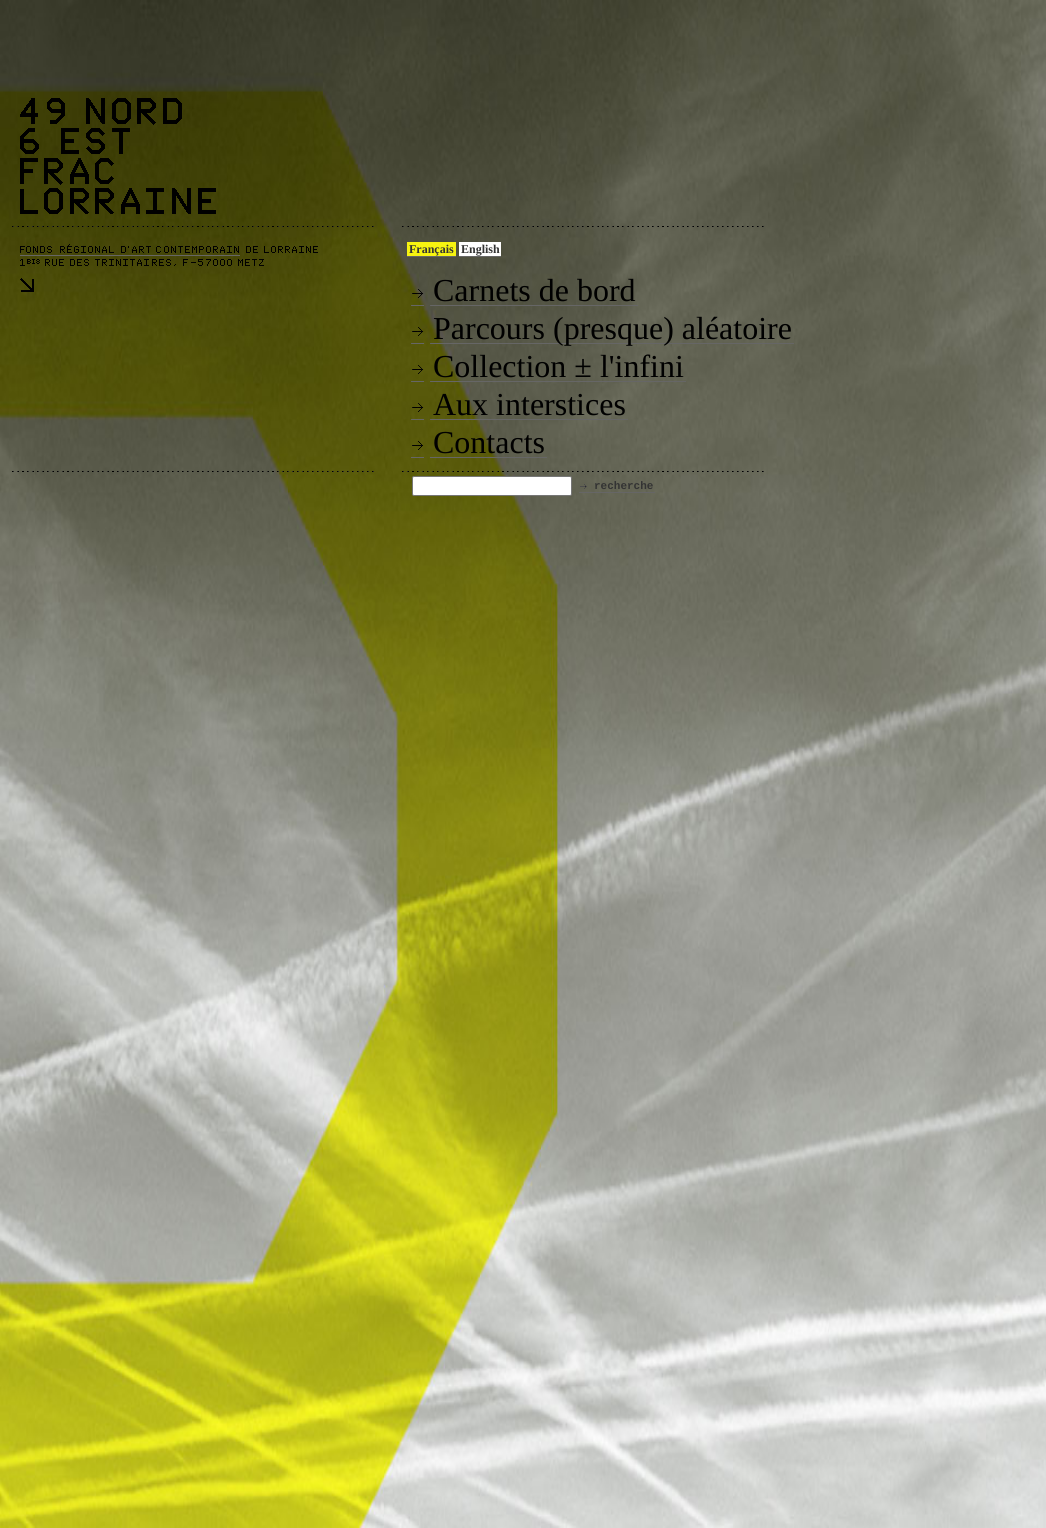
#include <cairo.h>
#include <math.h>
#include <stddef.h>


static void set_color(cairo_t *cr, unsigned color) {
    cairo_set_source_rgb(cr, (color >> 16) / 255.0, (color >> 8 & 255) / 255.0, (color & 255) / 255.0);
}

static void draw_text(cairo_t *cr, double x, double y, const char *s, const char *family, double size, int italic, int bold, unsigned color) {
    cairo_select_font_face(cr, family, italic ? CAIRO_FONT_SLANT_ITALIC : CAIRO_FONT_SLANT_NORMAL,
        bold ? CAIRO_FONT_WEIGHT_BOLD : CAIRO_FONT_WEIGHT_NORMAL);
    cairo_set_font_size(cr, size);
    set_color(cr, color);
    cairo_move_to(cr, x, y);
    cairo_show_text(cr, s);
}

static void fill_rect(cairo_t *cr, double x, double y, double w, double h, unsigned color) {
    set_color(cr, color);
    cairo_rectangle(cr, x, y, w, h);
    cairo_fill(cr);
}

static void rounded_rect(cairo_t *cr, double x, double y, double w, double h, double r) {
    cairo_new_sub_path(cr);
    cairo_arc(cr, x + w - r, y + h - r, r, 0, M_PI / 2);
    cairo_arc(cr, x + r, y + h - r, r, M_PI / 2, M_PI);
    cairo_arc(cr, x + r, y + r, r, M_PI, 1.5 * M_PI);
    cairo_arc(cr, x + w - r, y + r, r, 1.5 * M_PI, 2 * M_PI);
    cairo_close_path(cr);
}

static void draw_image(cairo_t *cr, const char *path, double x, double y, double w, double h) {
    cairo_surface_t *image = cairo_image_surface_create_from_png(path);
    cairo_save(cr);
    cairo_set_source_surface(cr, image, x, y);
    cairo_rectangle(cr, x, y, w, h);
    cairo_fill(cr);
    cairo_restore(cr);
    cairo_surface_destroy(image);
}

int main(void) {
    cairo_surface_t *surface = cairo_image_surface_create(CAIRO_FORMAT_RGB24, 1046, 1528);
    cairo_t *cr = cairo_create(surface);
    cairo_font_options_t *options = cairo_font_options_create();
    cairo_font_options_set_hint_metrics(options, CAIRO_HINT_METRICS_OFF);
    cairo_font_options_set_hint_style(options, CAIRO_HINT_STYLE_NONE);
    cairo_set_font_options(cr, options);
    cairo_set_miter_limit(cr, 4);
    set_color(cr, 0xFFFFFF);
    cairo_paint(cr);
    draw_image(cr, "assets/img1.png", 0, 0, 1046, 1528);
    draw_image(cr, "assets/img2.png", 12, 226, 362, 1);
    draw_image(cr, "assets/img3.png", 20, 98, 196, 116);
    draw_image(cr, "assets/img4.png", 402, 226, 362, 1);
    draw_image(cr, "assets/img5.png", 20, 244, 298, 22);
    draw_image(cr, "assets/img6.png", 20, 278, 14, 14);
    fill_rect(cr, 407, 242, 49, 14, 0xF7F410);
    draw_text(cr, 409, 253, "Français", "Liberation Serif", 12, 0, 1, 0x333333);
    fill_rect(cr, 407, 256, 49, 1, 0x666666);
    fill_rect(cr, 459, 242, 42, 14, 0xFFFFFF);
    draw_text(cr, 461, 253, "English", "Liberation Serif", 12, 0, 1, 0x333333);
    fill_rect(cr, 459, 256, 42, 1, 0x666666);
    draw_image(cr, "assets/img7.png", 411, 289, 227, 17);
    draw_text(cr, 433, 301, "Carnets de bord", "Liberation Serif", 32, 0, 0, 0x000000);
    draw_image(cr, "assets/img8.png", 411, 327, 383, 17);
    draw_text(cr, 433, 339, "Parcours (presque) aléatoire", "Liberation Serif", 32, 0, 0, 0x000000);
    draw_image(cr, "assets/img9.png", 411, 365, 275, 17);
    draw_text(cr, 433, 377, "Collection ± l'infini", "Liberation Serif", 32, 0, 0, 0x000000);
    draw_image(cr, "assets/img10.png", 411, 403, 217, 17);
    draw_text(cr, 433, 415, "Aux interstices", "Liberation Serif", 32, 0, 0, 0x000000);
    draw_image(cr, "assets/img11.png", 411, 441, 136, 17);
    draw_text(cr, 433, 453, "Contacts", "Liberation Serif", 32, 0, 0, 0x000000);
    draw_image(cr, "assets/img12.png", 12, 471, 362, 1);
    draw_image(cr, "assets/img13.png", 402, 471, 362, 1);
    set_color(cr, 0xFFFFFF);
    rounded_rect(cr, 412.5, 476.5, 159, 19, 1.5);
    cairo_fill_preserve(cr);
    set_color(cr, 0x767676);
    cairo_set_line_width(cr, 1);
    cairo_stroke(cr);
    draw_image(cr, "assets/img14.png", 580, 484, 7, 5);
    draw_text(cr, 594, 489, "recherche", "Liberation Mono", 11, 0, 1, 0x333333);
    fill_rect(cr, 579, 492, 76, 1, 0x666666);
    cairo_surface_write_to_png(surface, "output.png");
    cairo_font_options_destroy(options);
    cairo_destroy(cr);
    cairo_surface_destroy(surface);
    return 0;
}
